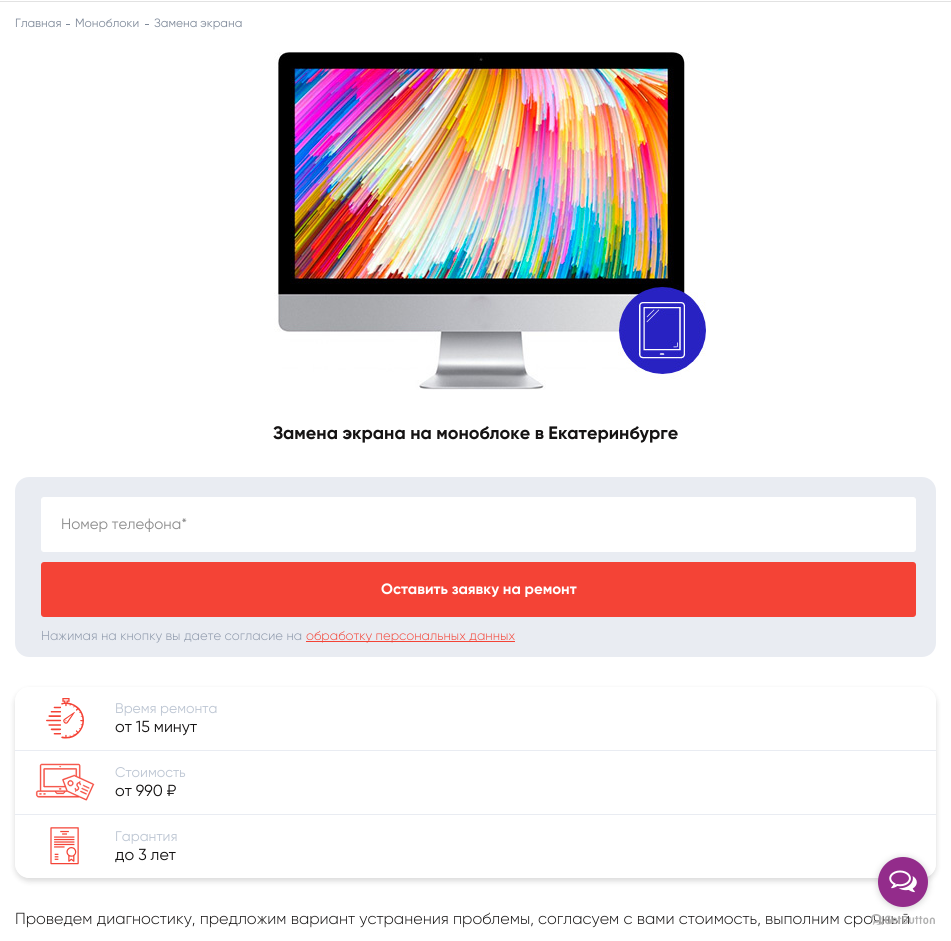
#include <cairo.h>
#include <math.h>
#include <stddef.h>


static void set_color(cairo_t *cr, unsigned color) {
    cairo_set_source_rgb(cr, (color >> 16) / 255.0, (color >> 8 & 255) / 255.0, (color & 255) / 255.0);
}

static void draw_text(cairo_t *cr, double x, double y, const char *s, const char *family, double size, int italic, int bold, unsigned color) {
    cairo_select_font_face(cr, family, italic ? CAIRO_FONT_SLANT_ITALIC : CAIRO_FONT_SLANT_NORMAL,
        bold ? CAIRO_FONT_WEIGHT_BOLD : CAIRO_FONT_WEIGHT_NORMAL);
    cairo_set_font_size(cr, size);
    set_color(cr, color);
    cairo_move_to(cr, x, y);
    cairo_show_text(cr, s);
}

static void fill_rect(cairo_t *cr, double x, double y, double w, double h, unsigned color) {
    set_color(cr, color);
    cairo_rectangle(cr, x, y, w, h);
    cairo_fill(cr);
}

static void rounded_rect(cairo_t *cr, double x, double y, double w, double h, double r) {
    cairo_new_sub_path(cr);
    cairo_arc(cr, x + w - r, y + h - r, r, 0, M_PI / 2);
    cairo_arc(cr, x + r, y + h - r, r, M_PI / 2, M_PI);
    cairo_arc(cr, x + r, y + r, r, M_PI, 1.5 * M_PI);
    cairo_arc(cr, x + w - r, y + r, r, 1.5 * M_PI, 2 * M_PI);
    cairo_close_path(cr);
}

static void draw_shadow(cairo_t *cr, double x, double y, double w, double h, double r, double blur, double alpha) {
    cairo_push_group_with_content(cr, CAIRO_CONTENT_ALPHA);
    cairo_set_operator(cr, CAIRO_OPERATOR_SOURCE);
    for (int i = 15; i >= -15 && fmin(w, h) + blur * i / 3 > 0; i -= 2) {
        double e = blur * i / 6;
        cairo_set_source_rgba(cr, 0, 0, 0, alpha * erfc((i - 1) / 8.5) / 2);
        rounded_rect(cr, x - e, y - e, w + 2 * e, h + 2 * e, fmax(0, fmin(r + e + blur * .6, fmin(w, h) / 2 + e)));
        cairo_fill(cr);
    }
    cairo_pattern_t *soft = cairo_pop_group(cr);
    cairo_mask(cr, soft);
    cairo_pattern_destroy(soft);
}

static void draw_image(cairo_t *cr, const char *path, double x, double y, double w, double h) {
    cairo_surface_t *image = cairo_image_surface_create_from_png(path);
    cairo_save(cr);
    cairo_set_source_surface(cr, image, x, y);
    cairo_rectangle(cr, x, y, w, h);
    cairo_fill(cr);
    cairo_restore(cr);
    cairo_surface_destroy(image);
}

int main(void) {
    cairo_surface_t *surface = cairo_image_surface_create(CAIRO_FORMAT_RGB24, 951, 941);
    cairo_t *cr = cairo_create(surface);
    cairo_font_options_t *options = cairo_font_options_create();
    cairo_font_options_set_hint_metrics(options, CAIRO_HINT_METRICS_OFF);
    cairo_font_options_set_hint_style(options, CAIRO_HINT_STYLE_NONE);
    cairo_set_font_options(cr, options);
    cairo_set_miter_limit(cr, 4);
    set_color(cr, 0xFFFFFF);
    cairo_paint(cr);
    fill_rect(cr, 0, 1, 951, 1, 0xE2E2E2);
    draw_text(cr, 15, 27, "Главная", "Gilroy", 12, 0, 0, 0x7F8A9A);
    fill_rect(cr, 66, 24, 4, 1, 0x7F8A9A);
    draw_text(cr, 75, 27, "Моноблоки", "Gilroy", 12, 0, 0, 0x7F8A9A);
    fill_rect(cr, 145, 24, 4, 1, 0x7F8A9A);
    draw_text(cr, 154, 27, "Замена экрана", "Gilroy", 12, 0, 0, 0x7F8A9A);
    draw_image(cr, "assets/img1.png", 274, 52, 432, 338);
    draw_text(cr, 273, 439, "Замена экрана на моноблоке в Екатеринбурге", "Gilroy", 18, 0, 1, 0x151313);
    set_color(cr, 0xE9ECF2);
    rounded_rect(cr, 15, 477, 921, 180, 14);
    cairo_fill(cr);
    set_color(cr, 0xFFFFFF);
    rounded_rect(cr, 41.5, 497.5, 874, 54, 2.5);
    cairo_fill_preserve(cr);
    cairo_set_line_width(cr, 1);
    cairo_stroke(cr);
    draw_text(cr, 61, 529, "Номер телефона*", "Gilroy", 15, 0, 0, 0x8D8D8D);
    set_color(cr, 0xF44336);
    rounded_rect(cr, 41, 562, 875, 55, 3);
    cairo_fill(cr);
    draw_text(cr, 381, 594, "Оставить заявку на ремонт", "Gilroy", 15, 0, 1, 0xFFFFFF);
    draw_text(cr, 41, 640, "Нажимая на кнопку вы даете согласие на", "Gilroy Light", 13, 0, 0, 0x8994A7);
    fill_rect(cr, 306, 641, 209, 1, 0xF44336);
    draw_text(cr, 306, 640, "обработку персональных данных", "Gilroy Light", 13, 0, 0, 0xF44336);
    cairo_save(cr);
    cairo_set_fill_rule(cr, CAIRO_FILL_RULE_EVEN_ODD);
    cairo_new_path(cr);
    cairo_move_to(cr, 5, 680);
    cairo_line_to(cr, 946, 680);
    cairo_line_to(cr, 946, 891);
    cairo_line_to(cr, 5, 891);
    cairo_close_path(cr);
    cairo_move_to(cr, 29, 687);
    cairo_line_to(cr, 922, 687);
    cairo_curve_to(cr, 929.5, 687, 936, 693.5, 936, 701);
    cairo_line_to(cr, 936, 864);
    cairo_curve_to(cr, 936, 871.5, 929.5, 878, 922, 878);
    cairo_line_to(cr, 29, 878);
    cairo_curve_to(cr, 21.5, 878, 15, 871.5, 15, 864);
    cairo_line_to(cr, 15, 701);
    cairo_curve_to(cr, 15, 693.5, 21.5, 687, 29, 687);
    cairo_close_path(cr);
    cairo_clip(cr);
    set_color(cr, 0x000000);
    draw_shadow(cr, 15, 690, 921, 191, 14, 3, 0.15);
    cairo_restore(cr);
    fill_rect(cr, 46, 698, 38, 41, 0xF44336);
    draw_image(cr, "assets/img2.png", 35, 697, 60, 42);
    draw_text(cr, 115, 713, "Время ремонта", "Gilroy", 14, 0, 0, 0xBDC6D3);
    draw_text(cr, 115, 732, "от 15 минут", "Gilroy", 16, 0, 0, 0x151313);
    fill_rect(cr, 15, 750, 921, 1, 0xE9ECF2);
    fill_rect(cr, 35, 763, 60, 38, 0xF44336);
    draw_image(cr, "assets/img3.png", 35, 761, 60, 42);
    draw_text(cr, 115, 777, "Стоимость", "Gilroy", 14, 0, 0, 0xBDC6D3);
    draw_text(cr, 115, 796, "от 990 ₽", "Gilroy", 16, 0, 0, 0x151313);
    fill_rect(cr, 15, 814, 921, 1, 0xE9ECF2);
    fill_rect(cr, 50, 827, 29, 38, 0xF44336);
    draw_image(cr, "assets/img4.png", 35, 825, 60, 42);
    draw_text(cr, 115, 841, "Гарантия", "Gilroy", 14, 0, 0, 0xBDC6D3);
    draw_text(cr, 115, 860, "до 3 лет", "Gilroy", 16, 0, 0, 0x151313);
    draw_text(cr, 15, 924, "Проведем диагностику, предложим вариант устранения проблемы, согласуем с вами стоимость, выполним срочный", "Gilroy Light", 16, 0, 0, 0x151313);
    draw_image(cr, "assets/img6.png", 871, 914, 64, 11);
    set_color(cr, 0x888888);
    draw_shadow(cr, 878, 858, 50, 50, 25, 3.5, 0.4);
    set_color(cr, 0x932C8B);
    cairo_arc(cr, 903, 882, 25, 0, 2 * M_PI);
    cairo_fill(cr);
    draw_image(cr, "assets/img5.png", 889, 870, 28, 23);
    cairo_surface_write_to_png(surface, "output.png");
    cairo_font_options_destroy(options);
    cairo_destroy(cr);
    cairo_surface_destroy(surface);
    return 0;
}
